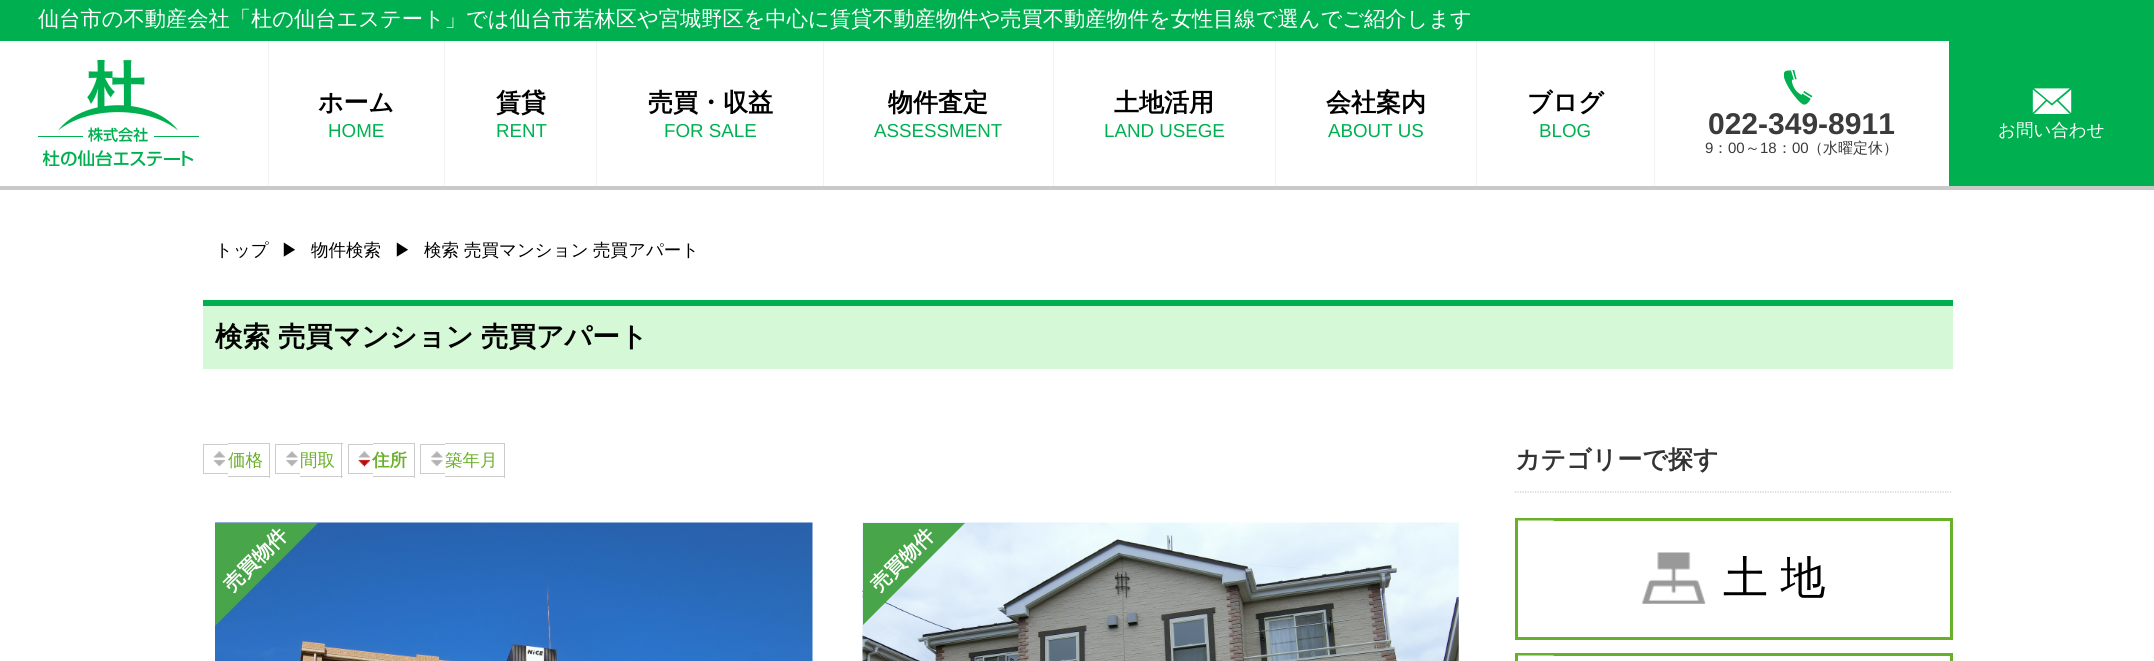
#include <cairo.h>
#include <math.h>
#include <stddef.h>


static void set_color(cairo_t *cr, unsigned color) {
    cairo_set_source_rgb(cr, (color >> 16) / 255.0, (color >> 8 & 255) / 255.0, (color & 255) / 255.0);
}

static void draw_text(cairo_t *cr, double x, double y, const char *s, const char *family, double size, int italic, int bold, unsigned color) {
    cairo_select_font_face(cr, family, italic ? CAIRO_FONT_SLANT_ITALIC : CAIRO_FONT_SLANT_NORMAL,
        bold ? CAIRO_FONT_WEIGHT_BOLD : CAIRO_FONT_WEIGHT_NORMAL);
    cairo_set_font_size(cr, size);
    set_color(cr, color);
    cairo_move_to(cr, x, y);
    cairo_show_text(cr, s);
}

static void draw_spaced(cairo_t *cr, double x, double y, const char *s, double letter, double word) {
    cairo_move_to(cr, x, y);
    while (*s) {
        char ch[5] = {0};
        int n = 0;
        do ch[n++] = *s++; while ((*s & 0xC0) == 0x80);
        cairo_show_text(cr, ch);
        cairo_rel_move_to(cr, letter + word * (*ch == ' '), 0);
    }
}

static void fill_rect(cairo_t *cr, double x, double y, double w, double h, unsigned color) {
    set_color(cr, color);
    cairo_rectangle(cr, x, y, w, h);
    cairo_fill(cr);
}

static void draw_image(cairo_t *cr, const char *path, double x, double y, double w, double h) {
    cairo_surface_t *image = cairo_image_surface_create_from_png(path);
    cairo_save(cr);
    cairo_set_source_surface(cr, image, x, y);
    cairo_rectangle(cr, x, y, w, h);
    cairo_fill(cr);
    cairo_restore(cr);
    cairo_surface_destroy(image);
}

int main(void) {
    cairo_surface_t *surface = cairo_image_surface_create(CAIRO_FORMAT_RGB24, 2154, 661);
    cairo_t *cr = cairo_create(surface);
    cairo_font_options_t *options = cairo_font_options_create();
    cairo_font_options_set_hint_metrics(options, CAIRO_HINT_METRICS_OFF);
    cairo_font_options_set_hint_style(options, CAIRO_HINT_STYLE_NONE);
    cairo_set_font_options(cr, options);
    cairo_set_miter_limit(cr, 4);
    set_color(cr, 0xFFFFFF);
    cairo_paint(cr);
    fill_rect(cr, 0, 0, 2154, 41, 0x00B050);
    draw_text(cr, 38, 26, "仙台市の不動産会社「杜の仙台エステート」では仙台市若林区や宮城野区を中心に賃貸不動産物件や売買不動産物件を女性目線で選んでご紹介します", "WenQuanYi Zen Hei Medium", 21.25, 0, 0, 0xFFFFFF);
    fill_rect(cr, 0, 186, 2154, 4, 0xC9C9C9);
    draw_image(cr, "assets/img1.png", 38, 60, 161, 106);
    fill_rect(cr, 268, 41, 1, 145, 0xF2F2F2);
    draw_text(cr, 318, 111, "ホーム", "WenQuanYi Zen Hei", 25, 0, 1, 0x000000);
    draw_text(cr, 328, 137, "HOME", "Liberation Sans", 18.75, 0, 0, 0x00B050);
    fill_rect(cr, 444, 41, 1, 145, 0xF2F2F2);
    draw_text(cr, 496, 111, "賃貸", "WenQuanYi Zen Hei", 25, 0, 1, 0x000000);
    draw_text(cr, 496, 137, "RENT", "Liberation Sans", 18.75, 0, 0, 0x00B050);
    fill_rect(cr, 596, 41, 1, 145, 0xF2F2F2);
    draw_text(cr, 648, 111, "売買・収益", "WenQuanYi Zen Hei", 25, 0, 1, 0x000000);
    draw_text(cr, 664, 137, "FOR SALE", "Liberation Sans", 18.75, 0, 0, 0x00B050);
    fill_rect(cr, 823, 41, 1, 145, 0xF2F2F2);
    draw_text(cr, 888, 111, "物件査定", "WenQuanYi Zen Hei", 25, 0, 1, 0x000000);
    draw_text(cr, 874, 137, "ASSESSMENT", "Liberation Sans", 18.75, 0, 0, 0x00B050);
    fill_rect(cr, 1053, 41, 1, 145, 0xF2F2F2);
    draw_text(cr, 1114, 111, "土地活用", "WenQuanYi Zen Hei", 25, 0, 1, 0x000000);
    draw_text(cr, 1104, 137, "LAND USEGE", "Liberation Sans", 18.75, 0, 0, 0x00B050);
    fill_rect(cr, 1275, 41, 1, 145, 0xF2F2F2);
    draw_text(cr, 1326, 111, "会社案内", "WenQuanYi Zen Hei", 25, 0, 1, 0x000000);
    draw_text(cr, 1328, 137, "ABOUT US", "Liberation Sans", 18.75, 0, 0, 0x00B050);
    fill_rect(cr, 1654, 41, 1, 145, 0xF2F2F2);
    fill_rect(cr, 1476, 41, 1, 145, 0xF2F2F2);
    draw_text(cr, 1527, 111, "ブログ", "WenQuanYi Zen Hei", 25, 0, 1, 0x000000);
    draw_text(cr, 1539, 137, "BLOG", "Liberation Sans", 18.75, 0, 0, 0x00B050);
    draw_image(cr, "assets/img2.png", 1784, 70, 29, 35);
    draw_text(cr, 1708, 134, "022-349-8911", "Liberation Sans", 30, 0, 1, 0x3B3B3B);
    draw_text(cr, 1705, 153, "9", "Liberation Sans", 15, 0, 0, 0x3B3B3B);
    draw_text(cr, 1713, 153, "：", "WenQuanYi Zen Hei Medium", 15, 0, 0, 0x3B3B3B);
    draw_text(cr, 1728, 153, "00", "Liberation Sans", 15, 0, 0, 0x3B3B3B);
    draw_text(cr, 1745, 153, "～", "WenQuanYi Zen Hei Medium", 15, 0, 0, 0x3B3B3B);
    draw_text(cr, 1760, 153, "18", "Liberation Sans", 15, 0, 0, 0x3B3B3B);
    draw_text(cr, 1777, 153, "：", "WenQuanYi Zen Hei Medium", 15, 0, 0, 0x3B3B3B);
    draw_text(cr, 1792, 153, "00", "Liberation Sans", 15, 0, 0, 0x3B3B3B);
    draw_text(cr, 1808, 153, "（水曜定休）", "WenQuanYi Zen Hei Medium", 15, 0, 0, 0x3B3B3B);
    fill_rect(cr, 1949, 41, 205, 145, 0x00B050);
    draw_image(cr, "assets/img3.png", 2032, 88, 40, 26);
    draw_text(cr, 1998, 136, "お問い合わせ", "WenQuanYi Zen Hei Medium", 17.5, 0, 0, 0xFFFFFF);
    draw_text(cr, 215, 256, "トップ", "WenQuanYi Zen Hei Medium", 17.5, 0, 0, 0x000000);
    draw_text(cr, 281, 256, "▶", "WenQuanYi Zen Hei Medium", 17.5, 0, 0, 0x000000);
    draw_text(cr, 311, 256, "物件検索", "WenQuanYi Zen Hei Medium", 17.5, 0, 0, 0x000000);
    draw_text(cr, 394, 256, "▶", "WenQuanYi Zen Hei Medium", 17.5, 0, 0, 0x000000);
    draw_text(cr, 424, 256, "検索", "WenQuanYi Zen Hei Medium", 17.5, 0, 0, 0x000000);
    draw_text(cr, 464, 256, "売買マンション", "WenQuanYi Zen Hei Medium", 17.5, 0, 0, 0x000000);
    draw_text(cr, 593, 256, "売買アパート", "WenQuanYi Zen Hei Medium", 17.5, 0, 0, 0x000000);
    fill_rect(cr, 203, 306, 1750, 63, 0xD5F8D6);
    fill_rect(cr, 203, 300, 1750, 6, 0x00B050);
    draw_text(cr, 215, 346, "検索", "WenQuanYi Zen Hei", 27.5, 0, 1, 0x000000);
    draw_text(cr, 278, 346, "売買マンション", "WenQuanYi Zen Hei", 27.5, 0, 1, 0x000000);
    draw_text(cr, 481, 346, "売買アパート", "WenQuanYi Zen Hei", 27.5, 0, 1, 0x000000);
    draw_image(cr, "assets/img4.png", 213, 451, 13, 16);
    draw_text(cr, 228, 466, "価格", "WenQuanYi Zen Hei Medium", 17.5, 0, 0, 0x69B029);
    fill_rect(cr, 203, 444, 25, 1, 0xCCCCCC);
    fill_rect(cr, 203, 473, 25, 1, 0xCCCCCC);
    fill_rect(cr, 203, 444, 1, 30, 0xCCCCCC);
    fill_rect(cr, 228, 443, 42, 1, 0xCCCCCC);
    fill_rect(cr, 269, 443, 1, 35, 0xCCCCCC);
    fill_rect(cr, 228, 476, 42, 1, 0xCCCCCC);
    draw_image(cr, "assets/img5.png", 286, 451, 12, 16);
    draw_text(cr, 300, 466, "間取", "WenQuanYi Zen Hei Medium", 17.5, 0, 0, 0x69B029);
    fill_rect(cr, 275, 444, 25, 1, 0xCCCCCC);
    fill_rect(cr, 275, 473, 25, 1, 0xCCCCCC);
    fill_rect(cr, 275, 444, 1, 30, 0xCCCCCC);
    fill_rect(cr, 300, 443, 43, 1, 0xCCCCCC);
    fill_rect(cr, 341, 443, 1, 35, 0xCCCCCC);
    fill_rect(cr, 300, 476, 43, 1, 0xCCCCCC);
    draw_image(cr, "assets/img6.png", 358, 451, 13, 16);
    draw_text(cr, 372, 466, "住所", "WenQuanYi Zen Hei", 17.5, 0, 1, 0x69B029);
    fill_rect(cr, 348, 444, 25, 1, 0xCCCCCC);
    fill_rect(cr, 348, 473, 25, 1, 0xCCCCCC);
    fill_rect(cr, 348, 444, 1, 30, 0xCCCCCC);
    fill_rect(cr, 373, 443, 42, 1, 0xCCCCCC);
    fill_rect(cr, 414, 443, 1, 35, 0xCCCCCC);
    fill_rect(cr, 373, 476, 42, 1, 0xCCCCCC);
    draw_image(cr, "assets/img7.png", 431, 451, 12, 16);
    draw_text(cr, 445, 466, "築年月", "WenQuanYi Zen Hei Medium", 17.5, 0, 0, 0x69B029);
    fill_rect(cr, 420, 444, 25, 1, 0xCCCCCC);
    fill_rect(cr, 420, 473, 25, 1, 0xCCCCCC);
    fill_rect(cr, 420, 444, 1, 30, 0xCCCCCC);
    fill_rect(cr, 445, 443, 60, 1, 0xCCCCCC);
    fill_rect(cr, 504, 443, 1, 35, 0xCCCCCC);
    fill_rect(cr, 445, 476, 60, 1, 0xCCCCCC);
    draw_image(cr, "assets/img8.png", 215, 522, 598, 139);
    cairo_save(cr);
    cairo_rectangle(cr, 215, 523, 598, 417);
    cairo_clip(cr);
    set_color(cr, 0x49A549);
    cairo_new_path(cr);
    cairo_move_to(cr, 157, 571);
    cairo_line_to(cr, 267, 462);
    cairo_line_to(cr, 323, 518);
    cairo_line_to(cr, 213, 628);
    cairo_close_path(cr);
    cairo_fill(cr);
    cairo_restore(cr);
    cairo_save(cr);
    cairo_translate(cr, 232, 593);
    cairo_rotate(cr, -45 * M_PI / 180);
    draw_text(cr, 0, 0, "売買物件", "WenQuanYi Zen Hei", 20, 0, 1, 0xFFFFFF);
    cairo_restore(cr);
    draw_image(cr, "assets/img9.png", 862, 522, 597, 139);
    cairo_save(cr);
    cairo_rectangle(cr, 863, 523, 596, 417);
    cairo_clip(cr);
    set_color(cr, 0x49A549);
    cairo_new_path(cr);
    cairo_move_to(cr, 804, 571);
    cairo_line_to(cr, 913, 462);
    cairo_line_to(cr, 970, 518);
    cairo_line_to(cr, 860, 628);
    cairo_close_path(cr);
    cairo_fill(cr);
    cairo_restore(cr);
    cairo_save(cr);
    cairo_translate(cr, 879, 593);
    cairo_rotate(cr, -45 * M_PI / 180);
    draw_text(cr, 0, 0, "売買物件", "WenQuanYi Zen Hei", 20, 0, 1, 0xFFFFFF);
    cairo_restore(cr);
    cairo_new_path(cr);
    cairo_move_to(cr, 1515, 492);
    cairo_line_to(cr, 1952.5, 492);
    set_color(cr, 0xCCCCCC);
    cairo_set_line_width(cr, 1.2);
    cairo_set_dash(cr, (double[]){1.25, 1.25}, 2, 0);
    cairo_stroke(cr);
    draw_text(cr, 1515, 468, "カテゴリーで探す", "WenQuanYi Zen Hei", 25, 0, 1, 0x333333);
    cairo_rectangle(cr, 1516.5, 519.5, 435, 119);
    set_color(cr, 0x69B029);
    cairo_set_line_width(cr, 3);
    cairo_set_dash(cr, NULL, 0, 0);
    cairo_stroke(cr);
    cairo_save(cr);
    cairo_rectangle(cr, 1518, 520, 432, 118);
    cairo_clip(cr);
    cairo_set_source_rgba(cr, 1, 1, 1, 0.5);
    cairo_new_path(cr);
    cairo_move_to(cr, 1509, 520);
    cairo_line_to(cr, 1554, 520);
    cairo_line_to(cr, 1436, 637);
    cairo_line_to(cr, 1391, 637);
    cairo_close_path(cr);
    cairo_fill(cr);
    cairo_restore(cr);
    draw_image(cr, "assets/img10.png", 1642, 552, 64, 52);
    cairo_select_font_face(cr, "WenQuanYi Zen Hei Medium", CAIRO_FONT_SLANT_NORMAL, CAIRO_FONT_WEIGHT_NORMAL);
    cairo_set_font_size(cr, 45);
    set_color(cr, 0x000000);
    draw_spaced(cr, 1723, 593, "土 地", 0, -1);
    cairo_rectangle(cr, 1516.5, 654.5, 435, 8);
    set_color(cr, 0x69B029);
    cairo_stroke(cr);
    cairo_save(cr);
    cairo_rectangle(cr, 1518, 655, 432, 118);
    cairo_clip(cr);
    cairo_set_source_rgba(cr, 1, 1, 1, 0.5);
    cairo_new_path(cr);
    cairo_move_to(cr, 1509, 655);
    cairo_line_to(cr, 1554, 655);
    cairo_line_to(cr, 1436, 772);
    cairo_line_to(cr, 1391, 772);
    cairo_close_path(cr);
    cairo_fill(cr);
    cairo_restore(cr);
    cairo_surface_write_to_png(surface, "output.png");
    cairo_font_options_destroy(options);
    cairo_destroy(cr);
    cairo_surface_destroy(surface);
    return 0;
}
